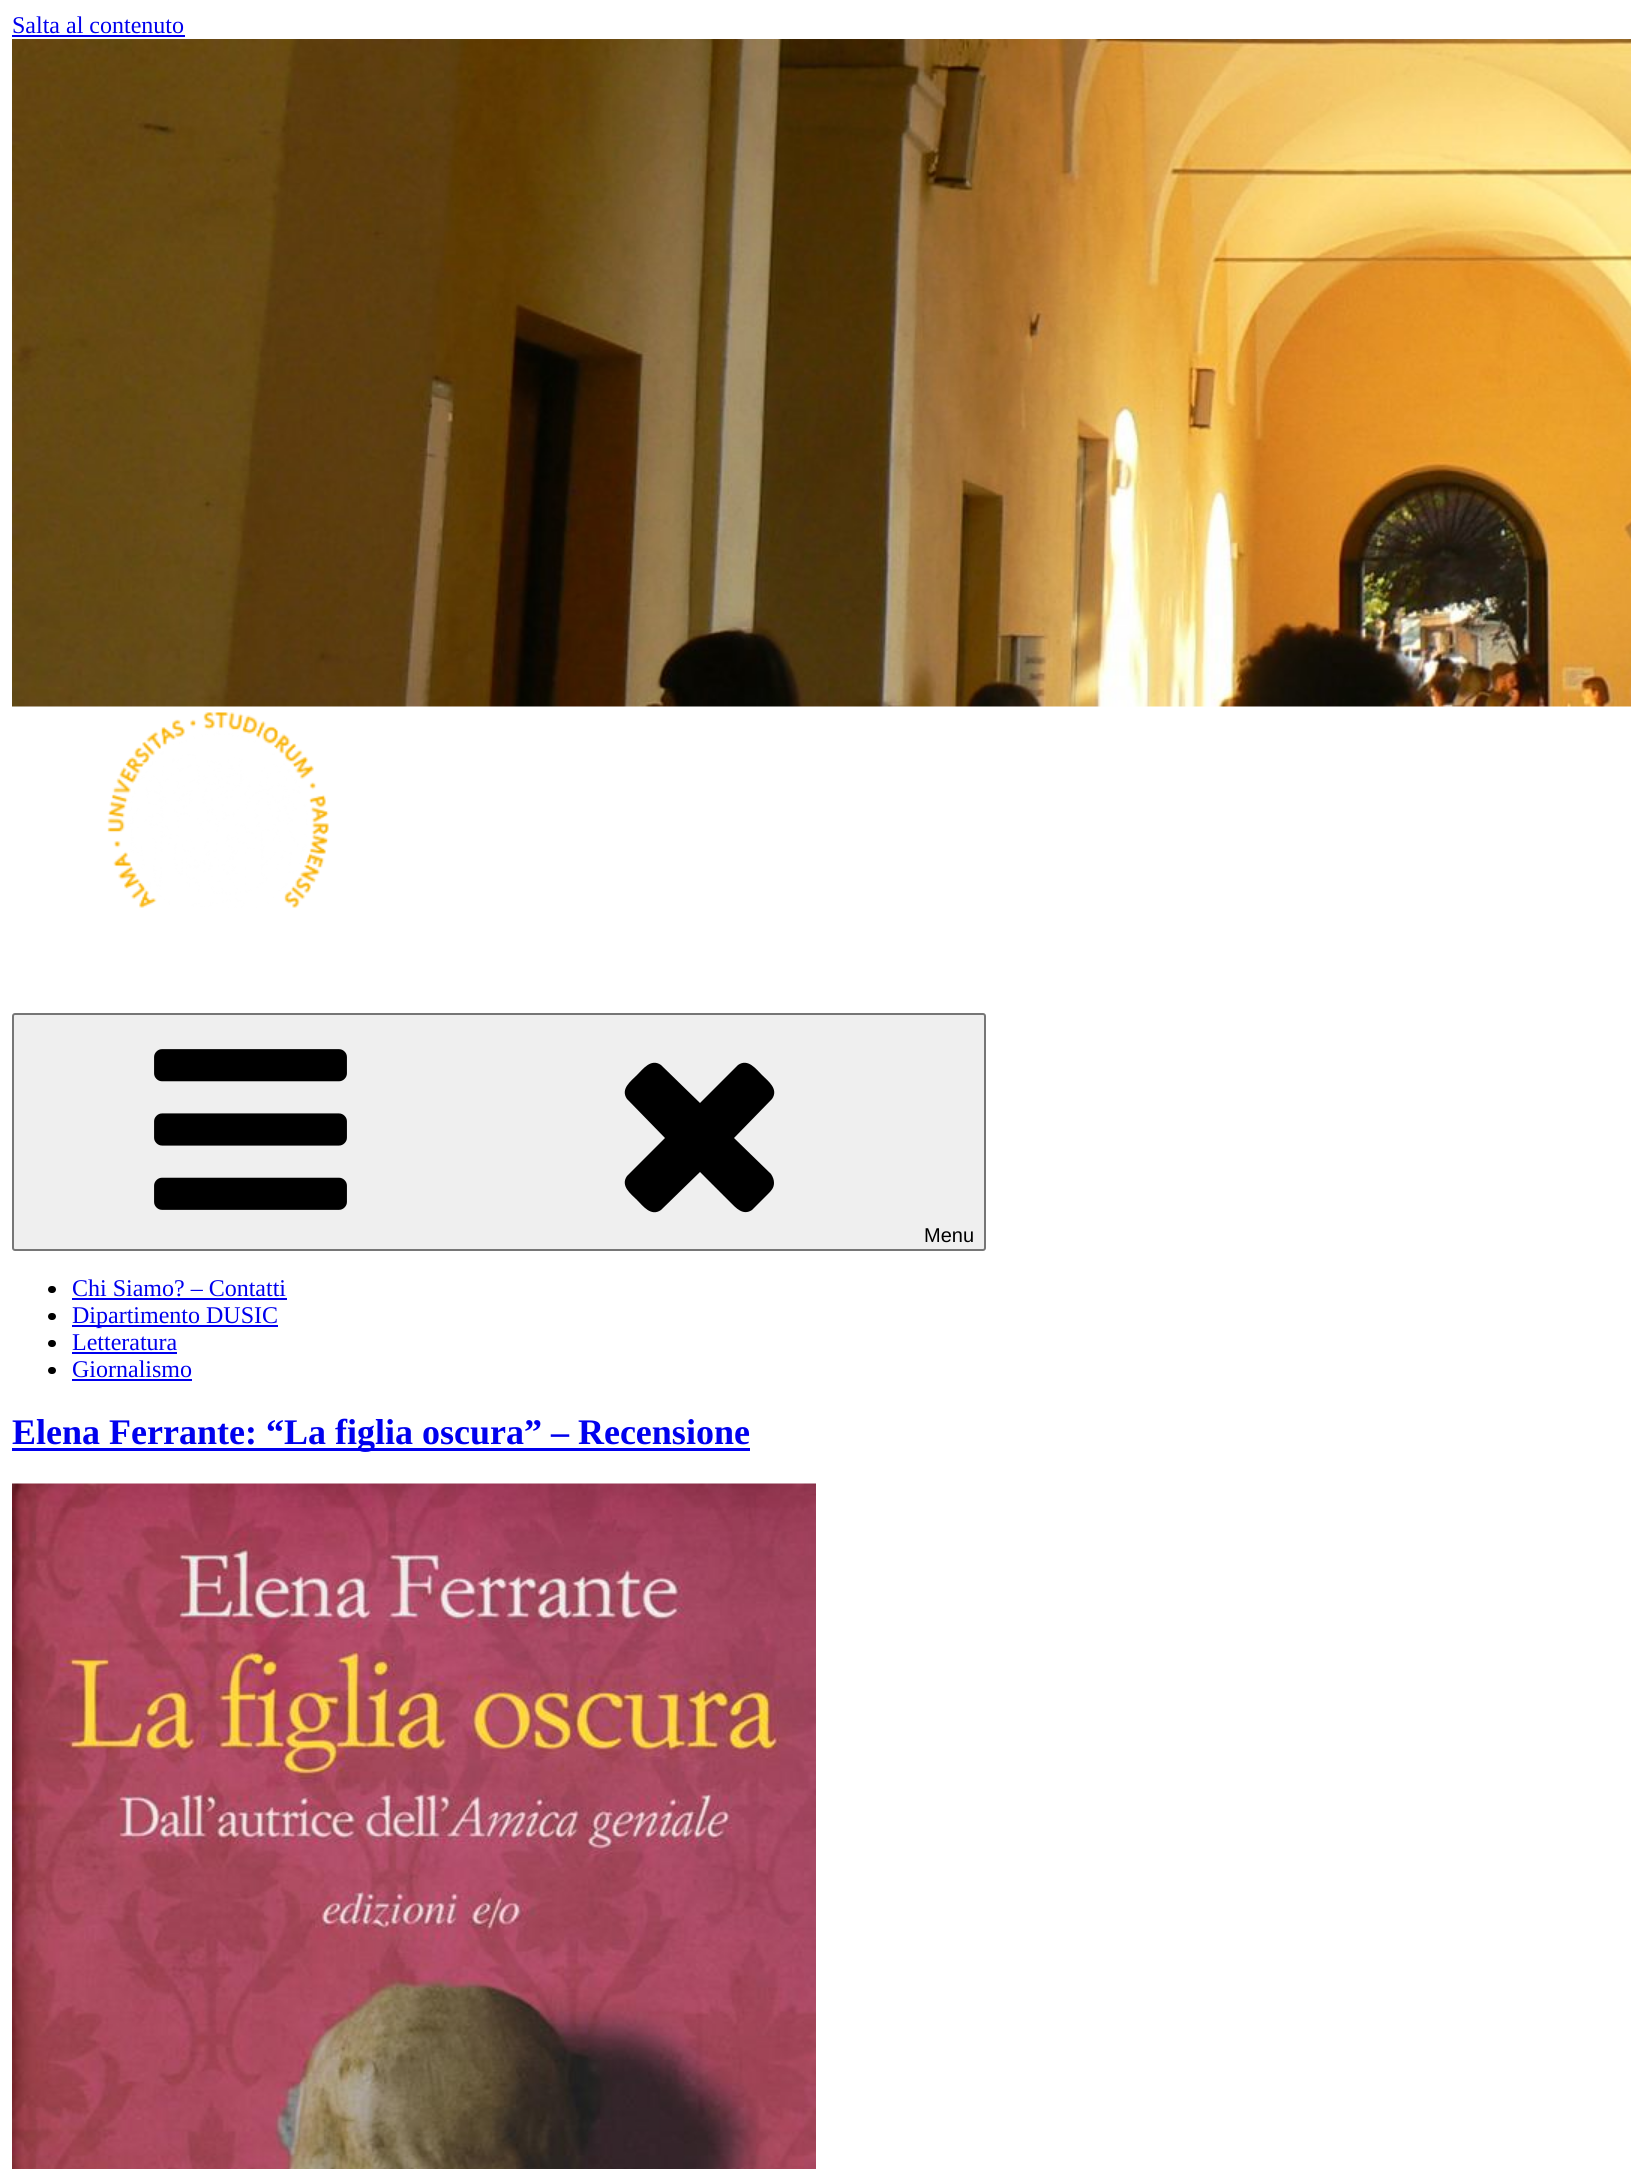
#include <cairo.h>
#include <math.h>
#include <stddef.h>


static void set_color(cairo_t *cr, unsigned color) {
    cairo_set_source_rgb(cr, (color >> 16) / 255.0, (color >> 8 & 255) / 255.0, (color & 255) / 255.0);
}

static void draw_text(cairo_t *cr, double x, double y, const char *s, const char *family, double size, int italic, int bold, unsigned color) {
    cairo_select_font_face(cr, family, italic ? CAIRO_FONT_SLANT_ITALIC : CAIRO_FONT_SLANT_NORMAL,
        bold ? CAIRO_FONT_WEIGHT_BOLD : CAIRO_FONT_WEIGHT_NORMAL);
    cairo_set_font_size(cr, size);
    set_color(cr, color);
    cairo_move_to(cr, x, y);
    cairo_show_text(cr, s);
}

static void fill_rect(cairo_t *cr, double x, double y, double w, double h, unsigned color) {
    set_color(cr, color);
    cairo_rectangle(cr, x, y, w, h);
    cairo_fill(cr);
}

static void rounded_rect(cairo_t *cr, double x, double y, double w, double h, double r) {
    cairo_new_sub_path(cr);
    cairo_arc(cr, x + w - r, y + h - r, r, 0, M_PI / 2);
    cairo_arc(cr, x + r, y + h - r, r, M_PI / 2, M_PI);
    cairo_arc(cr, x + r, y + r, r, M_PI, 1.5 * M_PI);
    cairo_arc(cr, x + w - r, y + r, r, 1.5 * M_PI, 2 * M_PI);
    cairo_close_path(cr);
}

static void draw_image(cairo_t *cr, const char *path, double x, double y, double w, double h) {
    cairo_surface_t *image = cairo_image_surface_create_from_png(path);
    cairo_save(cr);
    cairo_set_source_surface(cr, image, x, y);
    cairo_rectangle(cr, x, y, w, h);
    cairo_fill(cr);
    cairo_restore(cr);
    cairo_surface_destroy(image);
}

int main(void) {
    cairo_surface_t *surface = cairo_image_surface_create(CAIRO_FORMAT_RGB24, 1631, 2169);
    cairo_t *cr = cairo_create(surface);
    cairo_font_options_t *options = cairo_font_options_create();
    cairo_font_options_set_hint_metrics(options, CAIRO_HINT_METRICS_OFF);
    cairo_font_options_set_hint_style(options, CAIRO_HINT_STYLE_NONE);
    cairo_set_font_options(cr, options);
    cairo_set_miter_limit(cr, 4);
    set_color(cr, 0xFFFFFF);
    cairo_paint(cr);
    draw_text(cr, 12, 33, "Salta al contenuto", "Liberation Serif", 24, 0, 0, 0x0000EE);
    fill_rect(cr, 12, 35, 173, 2, 0x0000EE);
    draw_image(cr, "assets/img1.png", 12, 39, 1619, 668);
    draw_image(cr, "assets/img2.png", 107, 712, 222, 196);
    set_color(cr, 0xEFEFEF);
    rounded_rect(cr, 13, 1014, 972, 236, 2);
    cairo_fill_preserve(cr);
    set_color(cr, 0x767676);
    cairo_stroke(cr);
    draw_image(cr, "assets/img3.png", 154, 1049, 193, 161);
    set_color(cr, 0x000000);
    cairo_new_path(cr);
    cairo_move_to(cr, 774, 1183);
    cairo_curve_to(cr, 774, 1188, 771, 1191, 768, 1194);
    cairo_line_to(cr, 752, 1210);
    cairo_curve_to(cr, 743, 1216, 736, 1208, 730, 1202);
    cairo_line_to(cr, 700, 1172);
    cairo_line_to(cr, 661, 1210);
    cairo_curve_to(cr, 651, 1217, 643, 1206, 637, 1200);
    cairo_curve_to(cr, 631, 1194, 620, 1186, 627, 1176);
    cairo_line_to(cr, 665, 1138);
    cairo_line_to(cr, 627, 1099);
    cairo_curve_to(cr, 620, 1089, 631, 1081, 637, 1075);
    cairo_curve_to(cr, 643, 1069, 651, 1058, 661, 1065);
    cairo_line_to(cr, 700, 1103);
    cairo_line_to(cr, 738, 1065);
    cairo_curve_to(cr, 748, 1058, 756, 1069, 762, 1075);
    cairo_curve_to(cr, 768, 1081, 779, 1089, 772, 1099);
    cairo_line_to(cr, 734, 1138);
    cairo_line_to(cr, 771, 1174);
    cairo_curve_to(cr, 773, 1177, 774, 1180, 774, 1183);
    cairo_close_path(cr);
    cairo_fill(cr);
    draw_text(cr, 924, 1242, "Menu", "Liberation Sans", 20, 0, 0, 0x000000);
    rounded_rect(cr, 48, 1286, 8, 7, 3.5);
    cairo_fill(cr);
    draw_text(cr, 72, 1296, "Chi Siamo? – Contatti", "Liberation Serif", 24, 0, 0, 0x0000EE);
    fill_rect(cr, 72, 1298, 215, 2, 0x0000EE);
    set_color(cr, 0x000000);
    rounded_rect(cr, 48, 1313, 8, 7, 3.5);
    cairo_fill(cr);
    fill_rect(cr, 72, 1325, 206, 2, 0x0000EE);
    draw_text(cr, 72, 1323, "Dipartimento DUSIC", "Liberation Serif", 24, 0, 0, 0x0000EE);
    set_color(cr, 0x000000);
    rounded_rect(cr, 48, 1340, 8, 7, 3.5);
    cairo_fill(cr);
    draw_text(cr, 72, 1350, "Letteratura", "Liberation Serif", 24, 0, 0, 0x0000EE);
    fill_rect(cr, 72, 1352, 105, 2, 0x0000EE);
    set_color(cr, 0x000000);
    rounded_rect(cr, 48, 1367, 8, 7, 3.5);
    cairo_fill(cr);
    draw_text(cr, 72, 1377, "Giornalismo", "Liberation Serif", 24, 0, 0, 0x0000EE);
    fill_rect(cr, 72, 1379, 120, 2, 0x0000EE);
    fill_rect(cr, 12, 1448, 738, 3, 0x0000EE);
    draw_text(cr, 12, 1444, "Elena Ferrante: “La figlia oscura” – Recensione", "Liberation Serif", 36, 0, 1, 0x0000EE);
    draw_image(cr, "assets/img4.png", 12, 1483, 804, 686);
    cairo_surface_write_to_png(surface, "output.png");
    cairo_font_options_destroy(options);
    cairo_destroy(cr);
    cairo_surface_destroy(surface);
    return 0;
}
